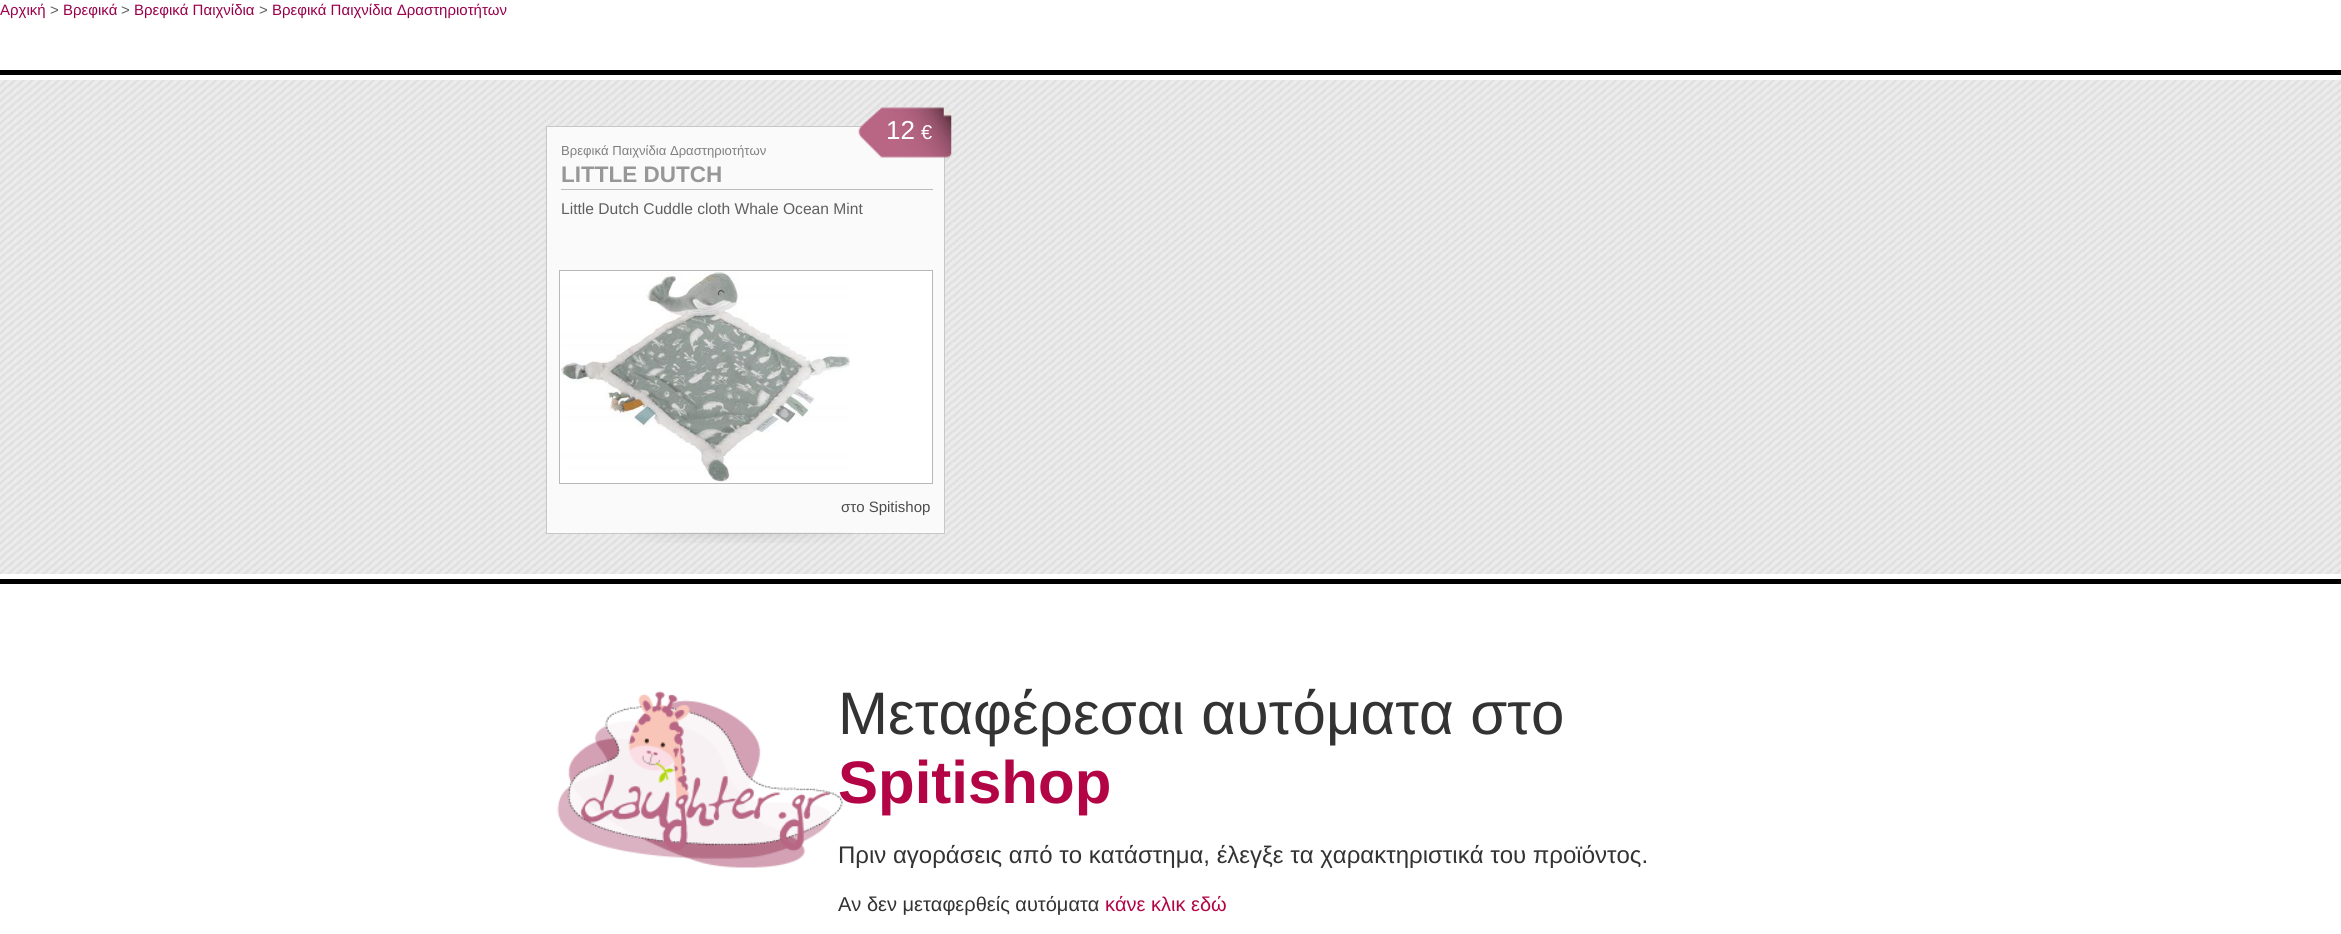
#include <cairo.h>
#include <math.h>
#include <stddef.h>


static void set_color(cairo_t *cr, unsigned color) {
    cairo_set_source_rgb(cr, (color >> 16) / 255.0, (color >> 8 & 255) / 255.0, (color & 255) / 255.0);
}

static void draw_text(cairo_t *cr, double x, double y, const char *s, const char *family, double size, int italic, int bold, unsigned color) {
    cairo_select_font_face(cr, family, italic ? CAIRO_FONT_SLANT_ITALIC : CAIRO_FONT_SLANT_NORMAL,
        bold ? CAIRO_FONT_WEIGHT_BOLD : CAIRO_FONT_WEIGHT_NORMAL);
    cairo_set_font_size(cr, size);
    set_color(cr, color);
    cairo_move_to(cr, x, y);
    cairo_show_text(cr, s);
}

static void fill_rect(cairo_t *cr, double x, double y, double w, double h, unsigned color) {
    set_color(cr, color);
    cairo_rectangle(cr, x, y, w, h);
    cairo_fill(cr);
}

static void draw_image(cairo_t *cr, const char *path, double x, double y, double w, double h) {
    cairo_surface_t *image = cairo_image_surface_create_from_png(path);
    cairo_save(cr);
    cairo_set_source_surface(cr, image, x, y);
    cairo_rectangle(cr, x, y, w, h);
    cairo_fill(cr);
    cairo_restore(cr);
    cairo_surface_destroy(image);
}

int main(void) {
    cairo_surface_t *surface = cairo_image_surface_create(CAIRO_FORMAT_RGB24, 2341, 934);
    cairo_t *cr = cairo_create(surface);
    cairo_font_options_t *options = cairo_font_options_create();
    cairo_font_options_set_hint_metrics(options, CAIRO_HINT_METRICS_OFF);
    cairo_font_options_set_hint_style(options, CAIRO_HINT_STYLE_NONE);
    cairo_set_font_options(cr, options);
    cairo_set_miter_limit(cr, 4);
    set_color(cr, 0xFFFFFF);
    cairo_paint(cr);
    draw_text(cr, 0, 15, "Αρχική", "Liberation Sans", 15, 0, 0, 0x99004C);
    draw_text(cr, 50, 15, ">", "Liberation Sans", 15, 0, 0, 0x5F5F5F);
    draw_text(cr, 63, 15, "Βρεφικά", "Liberation Sans", 15, 0, 0, 0x99004C);
    draw_text(cr, 121, 15, ">", "Liberation Sans", 15, 0, 0, 0x5F5F5F);
    draw_text(cr, 134, 15, "Βρεφικά Παιχνίδια", "Liberation Sans", 15, 0, 0, 0x99004C);
    draw_text(cr, 259, 15, ">", "Liberation Sans", 15, 0, 0, 0x5F5F5F);
    draw_text(cr, 272, 15, "Βρεφικά Παιχνίδια Δραστηριοτήτων", "Liberation Sans", 15, 0, 0, 0x99004C);
    cairo_rectangle(cr, -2.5, 72.5, 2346, 509);
    set_color(cr, 0x000000);
    cairo_set_line_width(cr, 5);
    cairo_stroke(cr);
    draw_image(cr, "assets/img1.png", 0, 80, 2341, 494);
    set_color(cr, 0xFAFAFA);
    cairo_rectangle(cr, 546.5, 126.5, 398, 407);
    cairo_fill_preserve(cr);
    set_color(cr, 0xC7C7C7);
    cairo_set_line_width(cr, 1);
    cairo_stroke(cr);
    draw_image(cr, "assets/img2.png", 858, 107, 94, 51);
    draw_text(cr, 886, 139, "12", "Liberation Sans", 26, 0, 0, 0xFFFFFF);
    draw_text(cr, 921, 139, "€", "Liberation Sans", 20, 0, 0, 0xFFFFFF);
    draw_text(cr, 561, 155, "Βρεφικά Παιχνίδια Δραστηριοτήτων", "Liberation Sans", 13.1, 0, 0, 0x7F7F7F);
    fill_rect(cr, 561, 189, 372, 1, 0xBCBCBC);
    draw_text(cr, 561, 182, "LITTLE DUTCH", "Liberation Sans", 22.5, 0, 1, 0x979797);
    draw_text(cr, 561, 214, "Little Dutch Cuddle cloth Whale Ocean Mint", "Liberation Sans", 15.6, 0, 0, 0x5F5F5F);
    set_color(cr, 0xFFFFFF);
    cairo_rectangle(cr, 559.5, 270.5, 373, 213);
    cairo_fill_preserve(cr);
    set_color(cr, 0xB8B8B8);
    cairo_stroke(cr);
    draw_image(cr, "assets/img3.png", 561, 272, 289, 210);
    draw_text(cr, 841, 512, "στο Spitishop", "Liberation Sans", 15, 0, 0, 0x4C4C4C);
    draw_image(cr, "assets/img4.png", 631, 532, 223, 11);
    draw_image(cr, "assets/img5.png", 557, 691, 286, 177);
    draw_text(cr, 838, 734, "Μεταφέρεσαι αυτόματα στο", "Liberation Sans", 60, 0, 0, 0x333333);
    draw_text(cr, 838, 803, "Spitishop", "Liberation Sans", 60, 0, 1, 0xB30545);
    draw_text(cr, 838, 863, "Πριν αγοράσεις από το κατάστημα, έλεγξε τα χαρακτηριστικά του προϊόντος.", "Liberation Sans", 24, 0, 0, 0x333333);
    draw_text(cr, 838, 911, "Αν δεν μεταφερθείς αυτόματα", "Liberation Sans", 20, 0, 0, 0x333333);
    draw_text(cr, 1105, 911, "κάνε κλικ εδώ", "Liberation Sans", 20, 0, 0, 0xB30545);
    cairo_surface_write_to_png(surface, "output.png");
    cairo_font_options_destroy(options);
    cairo_destroy(cr);
    cairo_surface_destroy(surface);
    return 0;
}
